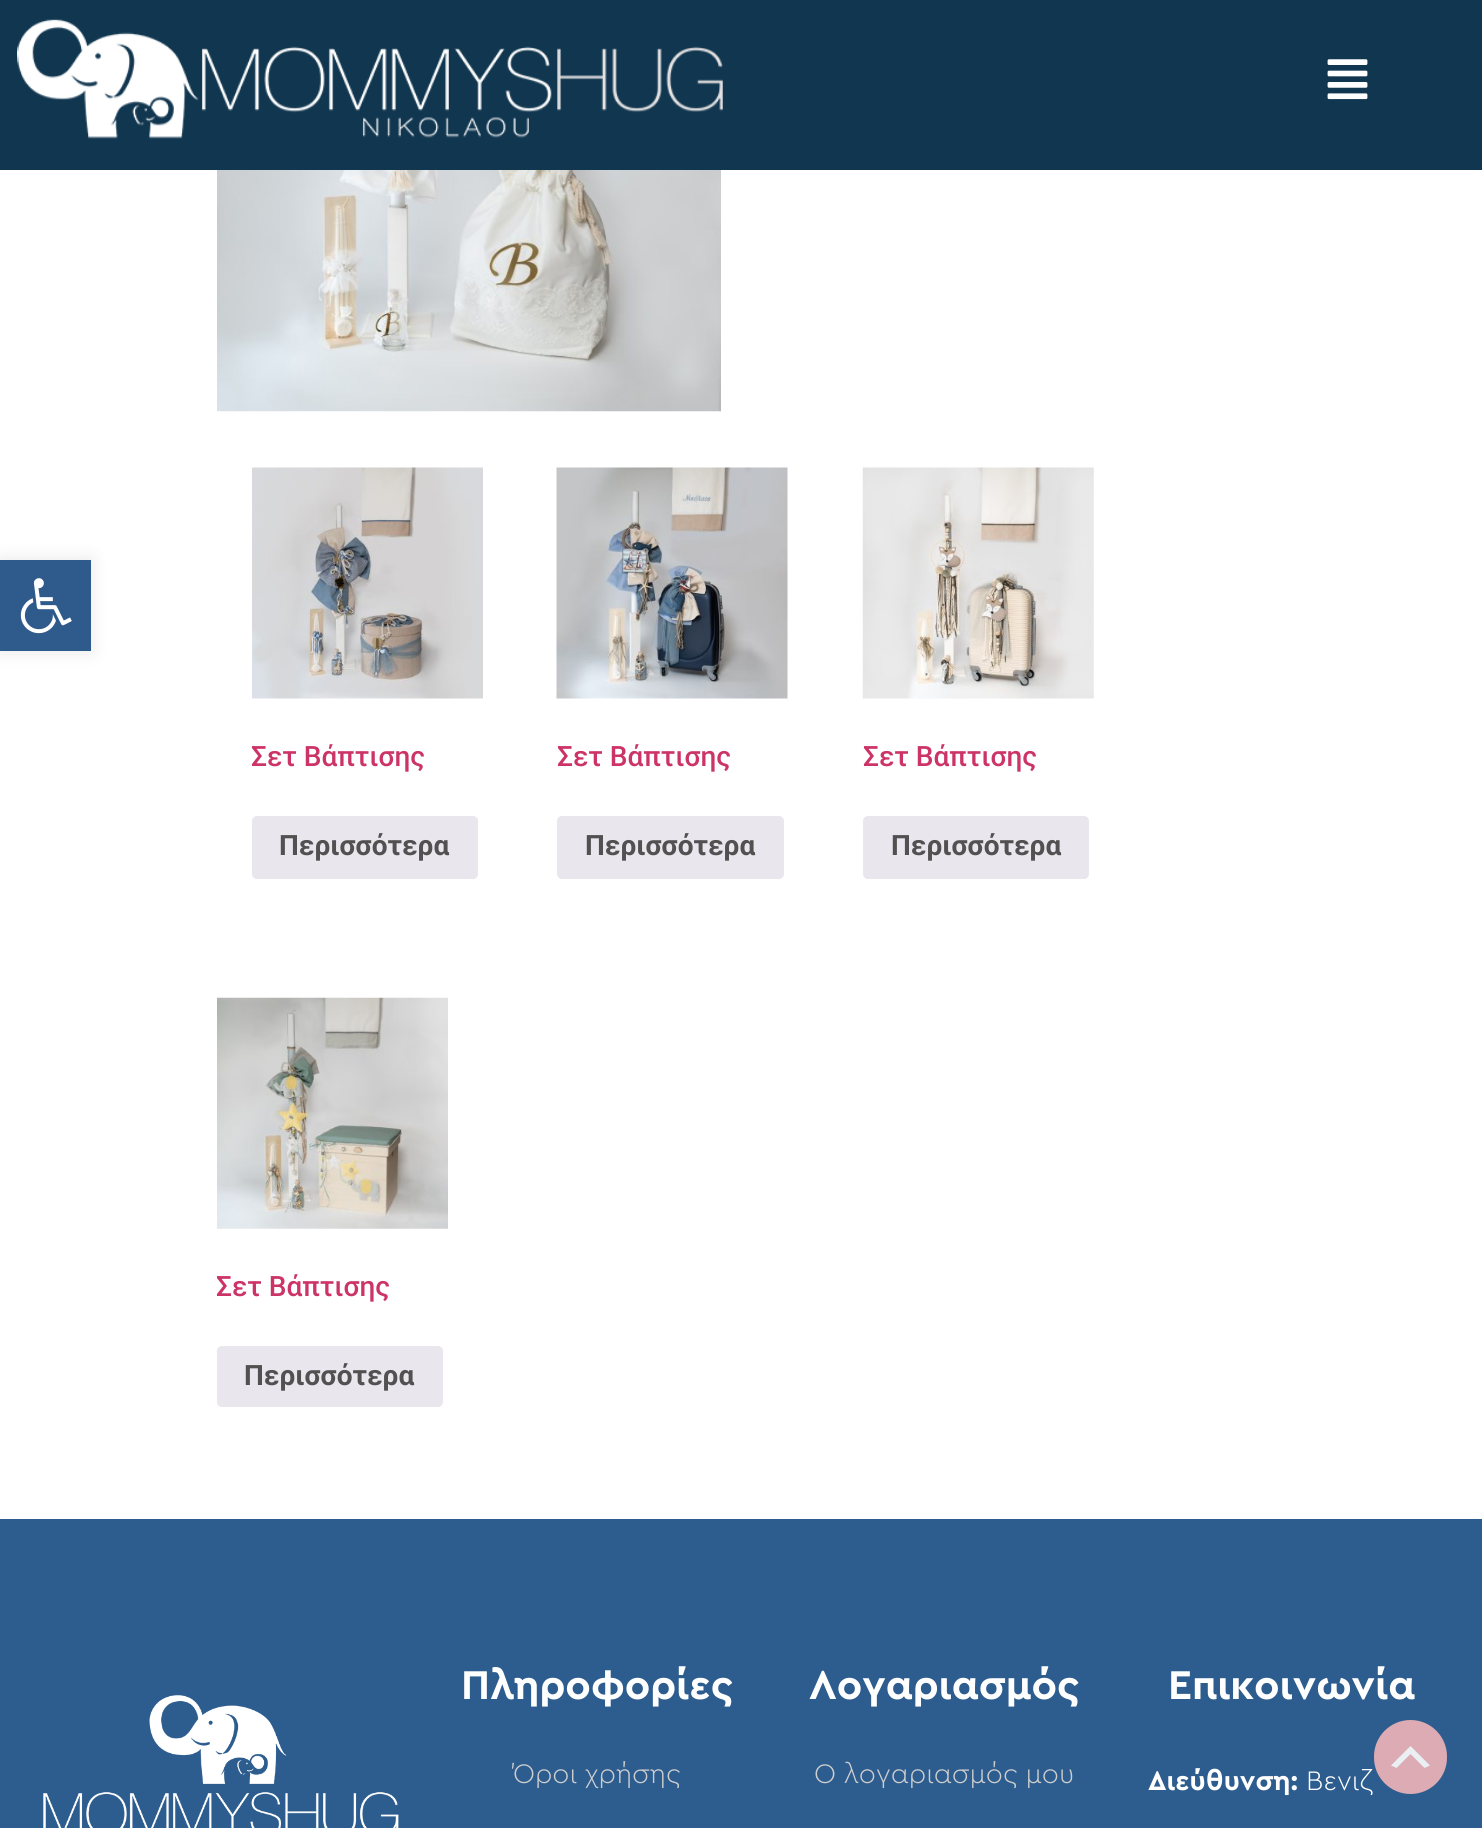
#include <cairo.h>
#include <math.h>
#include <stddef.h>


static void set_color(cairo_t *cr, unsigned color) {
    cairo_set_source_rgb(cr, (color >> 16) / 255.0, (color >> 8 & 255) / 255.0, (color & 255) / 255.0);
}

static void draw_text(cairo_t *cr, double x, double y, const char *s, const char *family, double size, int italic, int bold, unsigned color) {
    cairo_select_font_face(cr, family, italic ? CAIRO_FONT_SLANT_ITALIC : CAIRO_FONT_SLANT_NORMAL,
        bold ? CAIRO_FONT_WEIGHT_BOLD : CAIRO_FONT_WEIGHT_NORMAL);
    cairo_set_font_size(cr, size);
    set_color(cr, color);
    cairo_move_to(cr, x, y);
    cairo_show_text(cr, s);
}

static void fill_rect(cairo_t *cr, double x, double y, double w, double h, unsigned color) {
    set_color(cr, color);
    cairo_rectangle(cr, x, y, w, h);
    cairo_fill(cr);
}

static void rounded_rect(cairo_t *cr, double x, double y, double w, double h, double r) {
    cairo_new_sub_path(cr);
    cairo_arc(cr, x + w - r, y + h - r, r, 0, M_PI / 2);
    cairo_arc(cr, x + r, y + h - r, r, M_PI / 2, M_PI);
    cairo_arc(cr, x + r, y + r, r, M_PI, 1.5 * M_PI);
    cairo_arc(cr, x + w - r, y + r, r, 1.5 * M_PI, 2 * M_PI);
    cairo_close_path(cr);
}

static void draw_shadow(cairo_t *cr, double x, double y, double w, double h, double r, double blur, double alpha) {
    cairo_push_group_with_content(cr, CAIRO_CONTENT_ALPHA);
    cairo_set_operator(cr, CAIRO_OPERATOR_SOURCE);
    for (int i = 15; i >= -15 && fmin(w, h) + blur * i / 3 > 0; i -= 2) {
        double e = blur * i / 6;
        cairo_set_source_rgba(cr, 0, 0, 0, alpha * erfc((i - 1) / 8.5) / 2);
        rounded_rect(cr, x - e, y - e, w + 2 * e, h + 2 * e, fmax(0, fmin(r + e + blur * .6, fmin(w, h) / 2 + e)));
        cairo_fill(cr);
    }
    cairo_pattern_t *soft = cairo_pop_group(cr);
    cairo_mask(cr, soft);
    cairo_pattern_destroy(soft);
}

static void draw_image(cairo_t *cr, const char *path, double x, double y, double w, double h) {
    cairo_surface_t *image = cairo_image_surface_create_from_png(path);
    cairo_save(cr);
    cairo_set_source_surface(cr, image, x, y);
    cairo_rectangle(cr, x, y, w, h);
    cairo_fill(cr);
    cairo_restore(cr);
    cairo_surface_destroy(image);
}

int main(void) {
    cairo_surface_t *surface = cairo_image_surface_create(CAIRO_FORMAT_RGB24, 1482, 1828);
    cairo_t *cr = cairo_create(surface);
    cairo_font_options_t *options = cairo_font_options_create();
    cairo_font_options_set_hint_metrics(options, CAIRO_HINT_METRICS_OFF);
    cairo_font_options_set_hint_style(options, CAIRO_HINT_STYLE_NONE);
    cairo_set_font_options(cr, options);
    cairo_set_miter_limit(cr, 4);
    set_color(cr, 0xFFFFFF);
    cairo_paint(cr);
    set_color(cr, 0x000000);
    draw_shadow(cr, 0, 560, 91, 91, 0, 9, 0.1);
    fill_rect(cr, 0, 560, 91, 91, 0x2F5B8C);
    draw_image(cr, "assets/img1.png", 20, 578, 52, 56);
    fill_rect(cr, 0, 0, 1482, 170, 0x11364F);
    draw_image(cr, "assets/img2.png", 17, 19, 706, 120);
    draw_image(cr, "assets/img3.png", 1327, 59, 41, 41);
    draw_image(cr, "assets/img4.png", 217, 170, 504, 242);
    draw_image(cr, "assets/img5.png", 252, 467, 231, 232);
    draw_text(cr, 251, 766, "Σετ Βάπτισης", "Roboto Medium", 28, 0, 0, 0xCC3366);
    set_color(cr, 0xE9E6ED);
    rounded_rect(cr, 252, 816, 226, 63, 5);
    cairo_fill(cr);
    draw_text(cr, 279, 855, "Περισσότερα", "Roboto", 28, 0, 1, 0x515151);
    draw_image(cr, "assets/img6.png", 556, 467, 232, 232);
    draw_text(cr, 557, 766, "Σετ Βάπτισης", "Roboto Medium", 28, 0, 0, 0xCC3366);
    set_color(cr, 0xE9E6ED);
    rounded_rect(cr, 557, 816, 227, 63, 5);
    cairo_fill(cr);
    draw_text(cr, 585, 855, "Περισσότερα", "Roboto", 28, 0, 1, 0x515151);
    draw_image(cr, "assets/img7.png", 862, 467, 232, 232);
    draw_text(cr, 863, 766, "Σετ Βάπτισης", "Roboto Medium", 28, 0, 0, 0xCC3366);
    set_color(cr, 0xE9E6ED);
    rounded_rect(cr, 863, 816, 226, 63, 5);
    cairo_fill(cr);
    draw_text(cr, 891, 855, "Περισσότερα", "Roboto", 28, 0, 1, 0x515151);
    draw_image(cr, "assets/img8.png", 217, 997, 231, 232);
    draw_text(cr, 216, 1296, "Σετ Βάπτισης", "Roboto Medium", 28, 0, 0, 0xCC3366);
    set_color(cr, 0xE9E6ED);
    rounded_rect(cr, 217, 1346, 226, 61, 5);
    cairo_fill(cr);
    draw_text(cr, 244, 1385, "Περισσότερα", "Roboto", 28, 0, 1, 0x515151);
    fill_rect(cr, 0, 1519, 1482, 309, 0x2D5C8E);
    draw_image(cr, "assets/img9.png", 43, 1695, 356, 133);
    draw_text(cr, 461, 1699, "Πληροφορίες", "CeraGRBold", 42, 0, 1, 0xFFFFFF);
    draw_text(cr, 513, 1783, "Όροι χρήσης", "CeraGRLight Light", 28, 0, 0, 0xCECECE);
    draw_text(cr, 809, 1699, "Λογαριασμός", "CeraGRBold", 42, 0, 1, 0xFFFFFF);
    draw_text(cr, 814, 1783, "Ο λογαριασμός μου", "CeraGRLight Light", 28, 0, 0, 0xCECECE);
    draw_text(cr, 1168, 1699, "Επικοινωνία", "CeraGRBold", 42, 0, 1, 0xFFFFFF);
    draw_text(cr, 1148, 1790, "Διεύθυνση:", "CeraGRBold", 28, 0, 1, 0xFFFFFF);
    draw_text(cr, 1306, 1790, "Βενιζ", "CeraGRLight Light", 28, 0, 0, 0xFFFFFF);
    cairo_set_source_rgba(cr, 0.941, 0.706, 0.718, 0.9);
    rounded_rect(cr, 1374, 1720, 73, 74, 36.5);
    cairo_fill(cr);
    set_color(cr, 0xEAEFF4);
    cairo_new_path(cr);
    cairo_move_to(cr, 1424.5, 1768);
    cairo_line_to(cr, 1410.5, 1754);
    cairo_line_to(cr, 1396.5, 1768);
    cairo_line_to(cr, 1391, 1765.5);
    cairo_line_to(cr, 1410.5, 1746);
    cairo_line_to(cr, 1430, 1765.5);
    cairo_close_path(cr);
    cairo_fill(cr);
    cairo_surface_write_to_png(surface, "output.png");
    cairo_font_options_destroy(options);
    cairo_destroy(cr);
    cairo_surface_destroy(surface);
    return 0;
}
